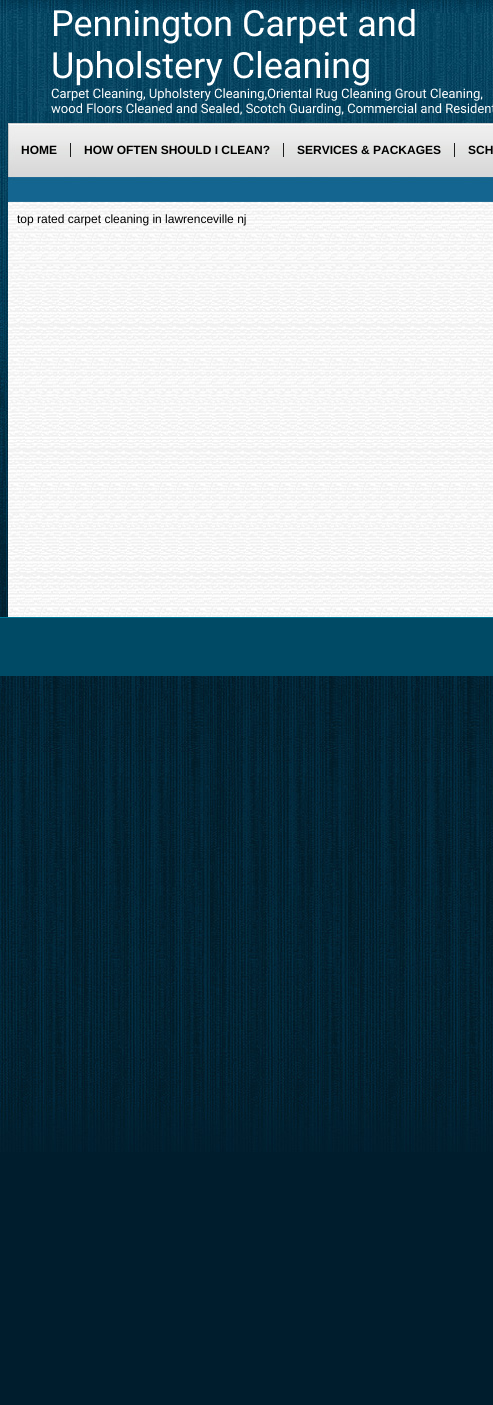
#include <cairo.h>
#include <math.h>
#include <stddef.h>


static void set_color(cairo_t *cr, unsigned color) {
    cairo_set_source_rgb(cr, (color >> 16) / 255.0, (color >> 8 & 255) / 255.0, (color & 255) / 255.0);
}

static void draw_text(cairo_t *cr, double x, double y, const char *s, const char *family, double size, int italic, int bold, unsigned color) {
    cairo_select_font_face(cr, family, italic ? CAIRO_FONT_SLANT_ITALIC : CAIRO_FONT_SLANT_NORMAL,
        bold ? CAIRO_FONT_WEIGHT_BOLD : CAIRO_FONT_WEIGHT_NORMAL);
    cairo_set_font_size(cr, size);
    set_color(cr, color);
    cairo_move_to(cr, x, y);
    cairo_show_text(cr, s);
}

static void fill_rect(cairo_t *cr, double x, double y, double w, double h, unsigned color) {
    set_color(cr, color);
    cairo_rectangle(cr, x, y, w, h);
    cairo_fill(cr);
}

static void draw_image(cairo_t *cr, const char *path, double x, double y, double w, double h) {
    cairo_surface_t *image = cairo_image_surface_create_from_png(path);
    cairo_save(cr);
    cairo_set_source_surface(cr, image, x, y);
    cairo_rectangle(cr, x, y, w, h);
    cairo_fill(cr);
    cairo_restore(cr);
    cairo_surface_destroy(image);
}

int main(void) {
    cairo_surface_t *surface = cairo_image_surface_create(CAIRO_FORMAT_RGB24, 493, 1405);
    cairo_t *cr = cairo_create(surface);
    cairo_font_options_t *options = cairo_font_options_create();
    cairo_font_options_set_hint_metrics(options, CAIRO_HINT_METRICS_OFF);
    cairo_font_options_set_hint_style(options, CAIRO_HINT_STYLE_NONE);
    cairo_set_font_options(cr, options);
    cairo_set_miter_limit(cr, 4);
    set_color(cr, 0x001D2D);
    cairo_paint(cr);
    draw_image(cr, "assets/img1.png", 0, 0, 493, 1152);
    draw_image(cr, "assets/img2.png", 8, 0, 485, 202);
    draw_text(cr, 21, 154, "HOME", "Liberation Sans", 12, 0, 1, 0x000000);
    fill_rect(cr, 70, 143, 1, 14, 0x1E1E1E);
    draw_text(cr, 84, 154, "HOW OFTEN SHOULD I CLEAN?", "Liberation Sans", 12, 0, 1, 0x000000);
    fill_rect(cr, 283, 143, 1, 14, 0x1E1E1E);
    draw_text(cr, 297, 154, "SERVICES & PACKAGES", "Liberation Sans", 12, 0, 1, 0x000000);
    fill_rect(cr, 454, 143, 1, 14, 0x1E1E1E);
    draw_text(cr, 468, 154, "SCH", "Liberation Sans", 12, 0, 1, 0x000000);
    draw_image(cr, "assets/img3.png", 8, 202, 485, 415);
    draw_text(cr, 17, 223, "top rated carpet cleaning in lawrenceville nj", "Liberation Sans", 12, 0, 0, 0x000000);
    fill_rect(cr, 0, 618, 493, 58, 0x004A65);
    fill_rect(cr, 0, 617, 493, 1, 0x007896);
    cairo_surface_write_to_png(surface, "output.png");
    cairo_font_options_destroy(options);
    cairo_destroy(cr);
    cairo_surface_destroy(surface);
    return 0;
}
